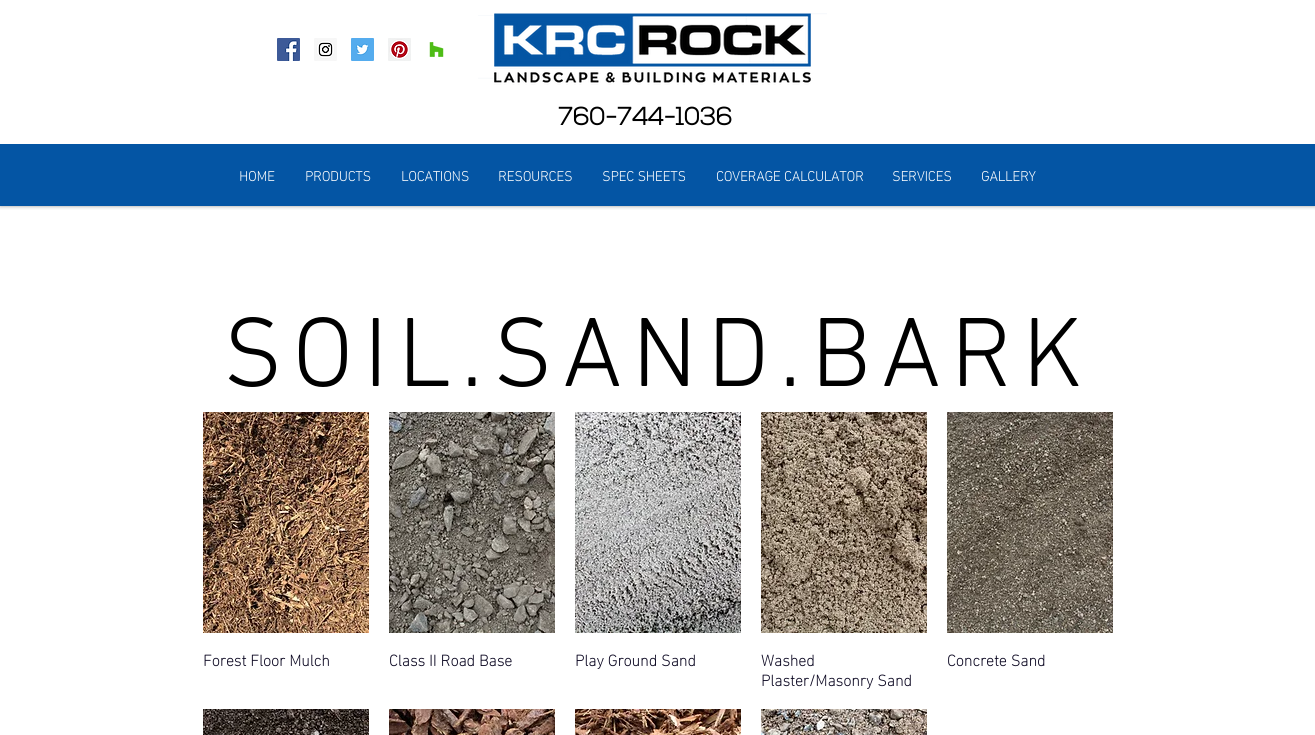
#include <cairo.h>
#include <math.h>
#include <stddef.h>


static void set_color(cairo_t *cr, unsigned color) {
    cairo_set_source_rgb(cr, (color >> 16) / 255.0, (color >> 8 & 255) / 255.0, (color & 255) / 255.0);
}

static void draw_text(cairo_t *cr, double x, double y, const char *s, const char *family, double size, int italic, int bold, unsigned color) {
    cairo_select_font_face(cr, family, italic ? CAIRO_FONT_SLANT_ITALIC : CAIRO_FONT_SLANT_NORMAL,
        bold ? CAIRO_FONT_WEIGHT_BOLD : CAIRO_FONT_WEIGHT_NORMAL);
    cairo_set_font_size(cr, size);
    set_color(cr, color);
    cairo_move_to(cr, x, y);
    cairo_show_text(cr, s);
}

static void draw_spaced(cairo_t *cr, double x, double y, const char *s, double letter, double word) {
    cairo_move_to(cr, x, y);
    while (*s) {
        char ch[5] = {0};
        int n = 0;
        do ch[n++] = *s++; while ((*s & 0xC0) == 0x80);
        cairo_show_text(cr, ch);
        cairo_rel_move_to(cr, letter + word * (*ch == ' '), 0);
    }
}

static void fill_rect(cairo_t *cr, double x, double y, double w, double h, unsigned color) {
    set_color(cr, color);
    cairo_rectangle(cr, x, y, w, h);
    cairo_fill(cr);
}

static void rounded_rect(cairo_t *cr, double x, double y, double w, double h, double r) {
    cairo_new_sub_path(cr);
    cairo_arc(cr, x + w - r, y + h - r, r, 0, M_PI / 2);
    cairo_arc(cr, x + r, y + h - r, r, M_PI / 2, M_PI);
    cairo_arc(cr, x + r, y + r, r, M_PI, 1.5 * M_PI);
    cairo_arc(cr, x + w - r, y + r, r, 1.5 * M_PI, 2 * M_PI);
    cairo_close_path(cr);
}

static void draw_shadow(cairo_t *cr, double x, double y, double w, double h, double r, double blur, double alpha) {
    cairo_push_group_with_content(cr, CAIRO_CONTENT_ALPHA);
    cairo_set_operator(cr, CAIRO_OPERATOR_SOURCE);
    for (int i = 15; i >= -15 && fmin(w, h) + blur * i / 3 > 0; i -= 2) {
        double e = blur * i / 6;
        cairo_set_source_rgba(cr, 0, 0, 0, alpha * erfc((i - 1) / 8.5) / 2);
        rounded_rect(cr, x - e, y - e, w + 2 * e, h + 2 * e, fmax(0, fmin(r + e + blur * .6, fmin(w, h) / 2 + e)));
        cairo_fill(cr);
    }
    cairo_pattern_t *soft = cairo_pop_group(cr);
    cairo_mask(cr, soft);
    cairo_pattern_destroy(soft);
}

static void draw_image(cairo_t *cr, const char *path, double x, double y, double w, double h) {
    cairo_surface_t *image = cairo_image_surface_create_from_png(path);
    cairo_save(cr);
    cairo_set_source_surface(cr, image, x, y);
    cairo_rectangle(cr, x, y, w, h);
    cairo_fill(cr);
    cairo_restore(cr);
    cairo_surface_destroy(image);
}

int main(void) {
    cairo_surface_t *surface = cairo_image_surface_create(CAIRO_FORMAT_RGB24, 1315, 735);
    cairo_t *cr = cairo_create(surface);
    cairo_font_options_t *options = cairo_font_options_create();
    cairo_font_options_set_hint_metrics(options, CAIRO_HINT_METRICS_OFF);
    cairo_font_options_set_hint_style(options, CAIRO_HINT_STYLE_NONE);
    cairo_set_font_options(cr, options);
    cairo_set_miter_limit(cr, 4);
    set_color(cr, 0xFFFFFF);
    cairo_paint(cr);
    cairo_save(cr);
    cairo_rectangle(cr, 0, 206, 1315, 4);
    cairo_clip(cr);
    set_color(cr, 0x000000);
    draw_shadow(cr, 0, 0, 1315, 205, 0, 2.5, 0.6);
    cairo_restore(cr);
    draw_image(cr, "assets/img1.png", 277, 38, 23, 23);
    draw_image(cr, "assets/img2.png", 314, 38, 23, 23);
    draw_image(cr, "assets/img3.png", 351, 38, 23, 23);
    draw_image(cr, "assets/img4.png", 388, 38, 23, 23);
    draw_image(cr, "assets/img5.png", 429, 42, 15, 15);
    draw_image(cr, "assets/img6.png", 478, 13, 349, 72);
    draw_text(cr, 558, 125, "760-744-1036", "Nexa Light", 25, 0, 1, 0x000000);
    fill_rect(cr, 0, 144, 1315, 62, 0x0455A4);
    draw_text(cr, 239, 181, "HOME", "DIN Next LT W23", 14, 0, 1, 0xFFFFFF);
    draw_text(cr, 305, 181, "PRODUCTS", "DIN Next LT W23", 14, 0, 1, 0xFFFFFF);
    draw_text(cr, 401, 181, "LOCATIONS", "DIN Next LT W23", 14, 0, 1, 0xFFFFFF);
    draw_text(cr, 498, 181, "RESOURCES", "DIN Next LT W23", 14, 0, 1, 0xFFFFFF);
    draw_text(cr, 602, 181, "SPEC SHEETS", "DIN Next LT W23", 14, 0, 1, 0xFFFFFF);
    draw_text(cr, 716, 181, "COVERAGE CALCULATOR", "DIN Next LT W23", 14, 0, 1, 0xFFFFFF);
    draw_text(cr, 892, 181, "SERVICES", "DIN Next LT W23", 14, 0, 1, 0xFFFFFF);
    draw_text(cr, 981, 181, "GALLERY", "DIN Next LT W23", 14, 0, 1, 0xFFFFFF);
    cairo_select_font_face(cr, "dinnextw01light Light", CAIRO_FONT_SLANT_NORMAL, CAIRO_FONT_WEIGHT_NORMAL);
    cairo_set_font_size(cr, 100);
    set_color(cr, 0x000000);
    draw_spaced(cr, 223, 386, "SOIL.SAND.BARK", 10, 0);
    draw_image(cr, "assets/img7.png", 203, 412, 166, 221);
    draw_text(cr, 203, 666, "Forest Floor Mulch", "DIN Next LT W23", 16, 0, 1, 0x0D0923);
    draw_image(cr, "assets/img8.png", 389, 412, 166, 221);
    draw_text(cr, 389, 666, "Class II Road Base", "DIN Next LT W23", 16, 0, 1, 0x0D0923);
    draw_image(cr, "assets/img9.png", 575, 412, 166, 221);
    draw_text(cr, 575, 666, "Play Ground Sand", "DIN Next LT W23", 16, 0, 1, 0x0D0923);
    draw_image(cr, "assets/img10.png", 761, 412, 166, 221);
    draw_text(cr, 761, 666, "Washed", "DIN Next LT W23", 16, 0, 1, 0x0D0923);
    draw_text(cr, 761, 686, "Plaster/Masonry Sand", "DIN Next LT W23", 16, 0, 1, 0x0D0923);
    draw_image(cr, "assets/img11.png", 947, 412, 166, 221);
    draw_text(cr, 947, 666, "Concrete Sand", "DIN Next LT W23", 16, 0, 1, 0x0D0923);
    draw_image(cr, "assets/img12.png", 203, 709, 166, 26);
    draw_image(cr, "assets/img13.png", 389, 709, 166, 26);
    draw_image(cr, "assets/img14.png", 575, 709, 166, 26);
    draw_image(cr, "assets/img15.png", 761, 709, 166, 26);
    cairo_surface_write_to_png(surface, "output.png");
    cairo_font_options_destroy(options);
    cairo_destroy(cr);
    cairo_surface_destroy(surface);
    return 0;
}
